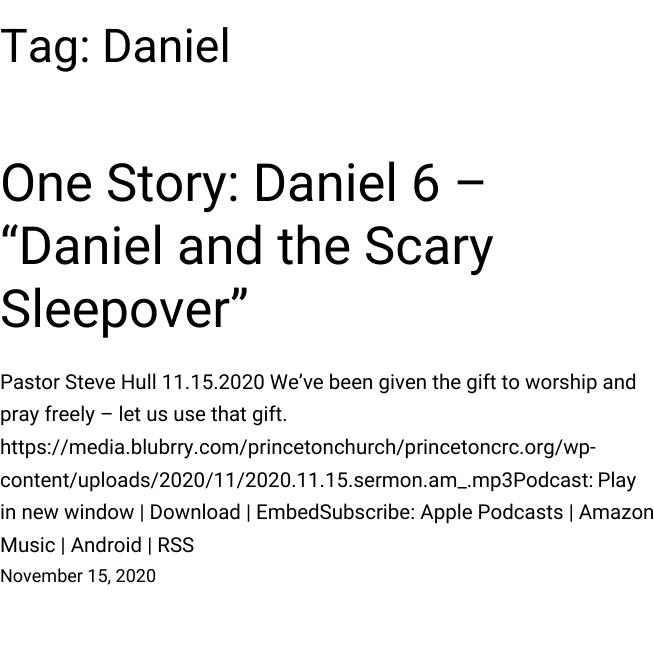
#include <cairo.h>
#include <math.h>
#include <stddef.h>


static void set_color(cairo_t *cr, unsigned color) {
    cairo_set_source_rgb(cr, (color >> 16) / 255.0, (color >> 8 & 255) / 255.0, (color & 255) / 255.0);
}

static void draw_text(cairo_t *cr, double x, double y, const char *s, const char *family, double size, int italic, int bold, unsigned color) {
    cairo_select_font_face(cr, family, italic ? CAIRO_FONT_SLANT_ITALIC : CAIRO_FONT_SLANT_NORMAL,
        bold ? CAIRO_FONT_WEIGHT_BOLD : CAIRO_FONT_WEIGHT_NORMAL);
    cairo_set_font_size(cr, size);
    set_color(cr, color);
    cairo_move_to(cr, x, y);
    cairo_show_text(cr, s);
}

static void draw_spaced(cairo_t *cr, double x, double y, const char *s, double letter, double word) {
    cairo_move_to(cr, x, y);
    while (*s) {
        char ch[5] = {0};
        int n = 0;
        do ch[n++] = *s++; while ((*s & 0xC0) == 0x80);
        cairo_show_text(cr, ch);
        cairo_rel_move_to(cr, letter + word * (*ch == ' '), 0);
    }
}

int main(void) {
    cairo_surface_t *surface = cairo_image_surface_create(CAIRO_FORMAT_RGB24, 654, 652);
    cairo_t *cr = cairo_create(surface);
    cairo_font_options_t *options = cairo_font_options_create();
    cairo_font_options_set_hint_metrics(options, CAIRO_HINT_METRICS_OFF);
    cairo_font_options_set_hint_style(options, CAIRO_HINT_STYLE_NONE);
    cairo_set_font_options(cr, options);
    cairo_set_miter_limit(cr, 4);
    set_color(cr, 0xFFFFFF);
    cairo_paint(cr);
    draw_text(cr, 0, 62, "Tag: Daniel", "Roboto", 46.5, 0, 0, 0x000000);
    draw_text(cr, 0, 201, "One Story: Daniel 6 –", "Roboto", 52.5, 0, 0, 0x000000);
    draw_text(cr, 0, 264, "“Daniel and the Scary", "Roboto", 52.5, 0, 0, 0x000000);
    draw_text(cr, 0, 327, "Sleepover”", "Roboto", 52.5, 0, 0, 0x000000);
    draw_text(cr, 0, 389, "Pastor Steve Hull 11.15.2020 We’ve been given the gift to worship and", "Roboto", 20.5, 0, 0, 0x000000);
    draw_text(cr, 0, 421, "pray freely – let us use that gift.", "Roboto", 20.5, 0, 0, 0x000000);
    draw_text(cr, 0, 454, "https://media.blubrry.com/princetonchurch/princetoncrc.org/wp-", "Roboto", 20.5, 0, 0, 0x000000);
    draw_spaced(cr, 0, 487, "content/uploads/2020/11/2020.11.15.sermon.am_.mp3Podcast: Play", 0, -1);
    draw_text(cr, 0, 519, "in new window | Download | EmbedSubscribe: Apple Podcasts | Amazon", "Roboto", 20.5, 0, 0, 0x000000);
    draw_text(cr, 0, 552, "Music | Android | RSS", "Roboto", 20.5, 0, 0, 0x000000);
    draw_text(cr, 0, 582, "November 15, 2020", "Roboto", 18, 0, 0, 0x000000);
    cairo_surface_write_to_png(surface, "output.png");
    cairo_font_options_destroy(options);
    cairo_destroy(cr);
    cairo_surface_destroy(surface);
    return 0;
}
